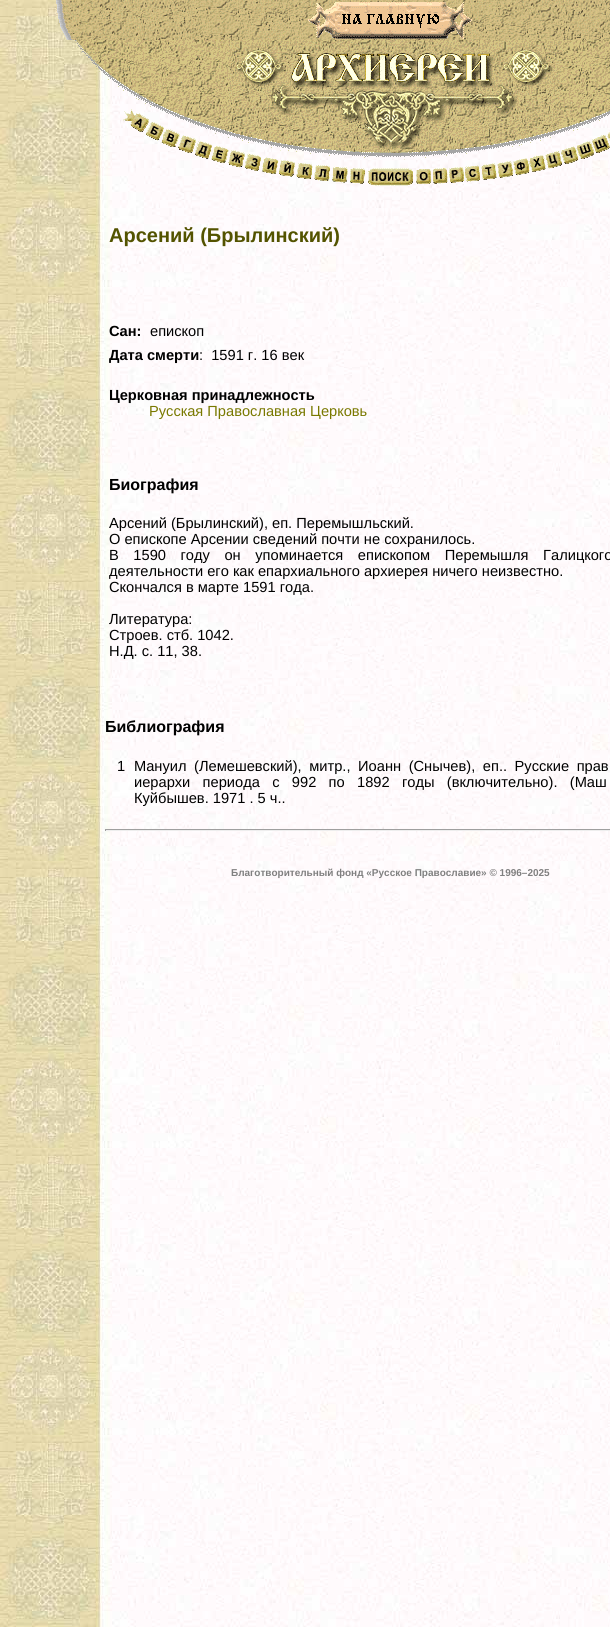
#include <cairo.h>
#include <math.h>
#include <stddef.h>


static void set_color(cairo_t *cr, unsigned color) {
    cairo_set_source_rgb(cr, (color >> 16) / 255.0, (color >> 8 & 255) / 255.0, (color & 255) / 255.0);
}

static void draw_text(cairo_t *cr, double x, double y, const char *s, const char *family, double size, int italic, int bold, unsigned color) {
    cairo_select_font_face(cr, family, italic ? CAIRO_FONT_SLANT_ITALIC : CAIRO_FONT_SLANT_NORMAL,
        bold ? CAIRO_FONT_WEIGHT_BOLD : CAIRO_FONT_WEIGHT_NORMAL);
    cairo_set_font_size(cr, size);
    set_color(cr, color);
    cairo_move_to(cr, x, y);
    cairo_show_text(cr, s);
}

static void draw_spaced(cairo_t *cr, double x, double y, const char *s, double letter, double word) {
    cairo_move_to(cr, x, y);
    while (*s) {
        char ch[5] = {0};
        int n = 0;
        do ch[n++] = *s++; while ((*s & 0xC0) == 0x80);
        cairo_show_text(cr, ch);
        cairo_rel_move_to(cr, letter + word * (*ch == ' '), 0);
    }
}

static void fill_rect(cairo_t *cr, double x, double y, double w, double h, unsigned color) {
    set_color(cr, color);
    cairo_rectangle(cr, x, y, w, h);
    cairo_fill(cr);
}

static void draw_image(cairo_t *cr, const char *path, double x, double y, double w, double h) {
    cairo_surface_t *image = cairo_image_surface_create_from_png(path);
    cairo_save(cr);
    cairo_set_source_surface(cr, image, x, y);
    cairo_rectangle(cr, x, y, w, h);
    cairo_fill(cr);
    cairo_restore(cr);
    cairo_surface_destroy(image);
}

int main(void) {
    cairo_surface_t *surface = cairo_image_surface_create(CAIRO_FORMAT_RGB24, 610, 1627);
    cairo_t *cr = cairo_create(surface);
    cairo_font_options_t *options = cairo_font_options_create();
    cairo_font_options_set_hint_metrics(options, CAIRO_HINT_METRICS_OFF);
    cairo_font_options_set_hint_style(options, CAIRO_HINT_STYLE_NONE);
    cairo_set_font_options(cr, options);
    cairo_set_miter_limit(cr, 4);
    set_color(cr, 0xFFFFFF);
    cairo_paint(cr);
    draw_image(cr, "assets/img1.png", 0, 0, 610, 1627);
    draw_image(cr, "assets/img2.png", 56, 0, 554, 40);
    draw_image(cr, "assets/img3.png", 308, 3, 27, 35);
    draw_image(cr, "assets/img4.png", 335, 2, 111, 37);
    draw_image(cr, "assets/img5.png", 446, 2, 26, 37);
    draw_image(cr, "assets/img6.png", 75, 40, 153, 123);
    draw_image(cr, "assets/img7.png", 228, 40, 333, 107);
    draw_image(cr, "assets/img8.png", 561, 40, 49, 125);
    draw_image(cr, "assets/img9.png", 228, 147, 333, 39);
    draw_text(cr, 109, 242, "Арсений (Брылинский)", "Liberation Sans", 20, 0, 1, 0x535300);
    draw_text(cr, 109, 336, "Сан:", "Liberation Sans", 14.65, 0, 1, 0x000000);
    draw_text(cr, 150, 336, "епископ", "Liberation Sans", 14.65, 0, 0, 0x000000);
    draw_text(cr, 109, 360, "Дата смерти", "Liberation Sans", 14.65, 0, 1, 0x000000);
    draw_text(cr, 199, 360, ":  1591 г. 16 век", "Liberation Sans", 14.65, 0, 0, 0x000000);
    draw_text(cr, 109, 400, "Церковная принадлежность", "Liberation Sans", 14.65, 0, 1, 0x000000);
    draw_text(cr, 149, 416, "Русская Православная Церковь", "Liberation Sans", 14.65, 0, 0, 0x797900);
    draw_text(cr, 109, 490, "Биография", "Liberation Sans", 16, 0, 1, 0x000000);
    draw_text(cr, 109, 528, "Арсений (Брылинский), еп. Перемышльский.", "Liberation Sans", 14.65, 0, 0, 0x000000);
    draw_text(cr, 109, 544, "О епископе Арсении сведений почти не сохранилось.", "Liberation Sans", 14.65, 0, 0, 0x000000);
    draw_spaced(cr, 109, 560, "В 1590 году он упоминается епископом Перемышля Галицкого", 0, 10.5);
    draw_text(cr, 109, 576, "деятельности его как епархиального архиерея ничего неизвестно.", "Liberation Sans", 14.65, 0, 0, 0x000000);
    draw_text(cr, 109, 592, "Скончался в марте 1591 года.", "Liberation Sans", 14.65, 0, 0, 0x000000);
    draw_text(cr, 109, 624, "Литература:", "Liberation Sans", 14.65, 0, 0, 0x000000);
    draw_text(cr, 109, 640, "Строев. стб. 1042.", "Liberation Sans", 14.65, 0, 0, 0x000000);
    draw_text(cr, 109, 656, "Н.Д. с. 11, 38.", "Liberation Sans", 14.65, 0, 0, 0x000000);
    draw_text(cr, 105, 732, "Библиография", "Liberation Sans", 16, 0, 1, 0x000000);
    draw_text(cr, 117, 771, "1", "Liberation Sans", 14.65, 0, 0, 0x000000);
    draw_spaced(cr, 134, 771, "Мануил (Лемешевский), митр., Иоанн (Снычев), еп.. Русские прав", 0, 3.5);
    draw_spaced(cr, 134, 787, "иерархи периода с 992 по 1892 годы (включительно). (Маш", 0, 8.25);
    draw_text(cr, 134, 803, "Куйбышев. 1971 . 5 ч..", "Liberation Sans", 14.65, 0, 0, 0x000000);
    fill_rect(cr, 105, 829, 505, 1, 0x9F9F9F);
    fill_rect(cr, 105, 830, 505, 1, 0xEEEEEE);
    fill_rect(cr, 105, 829, 1, 2, 0x9F9F9F);
    draw_text(cr, 231, 876, "Благотворительный фонд «Русское Православие» © 1996–2025", "Liberation Sans", 10, 0, 1, 0x808080);
    cairo_surface_write_to_png(surface, "output.png");
    cairo_font_options_destroy(options);
    cairo_destroy(cr);
    cairo_surface_destroy(surface);
    return 0;
}
